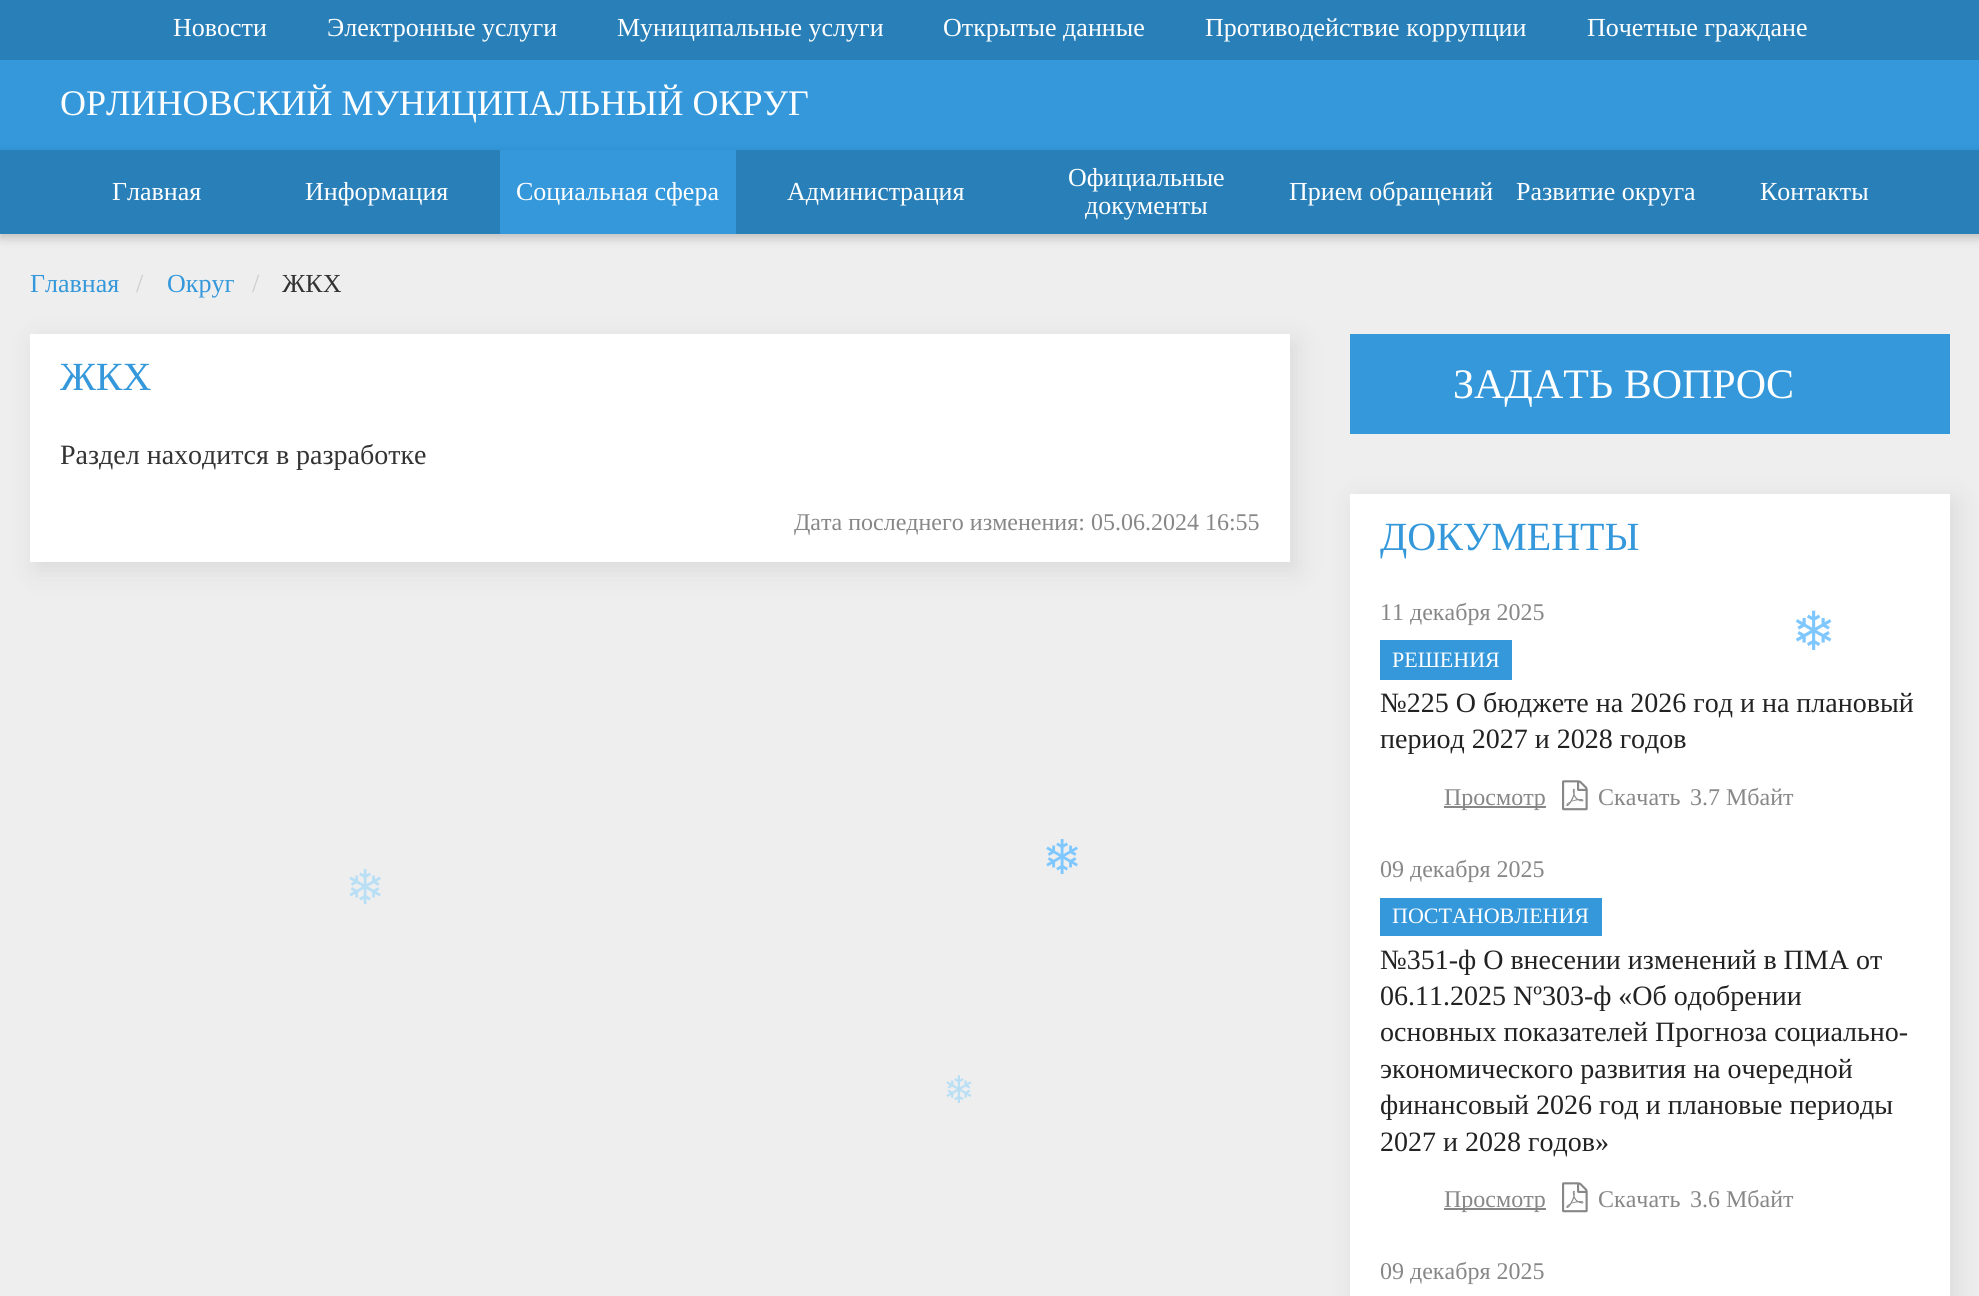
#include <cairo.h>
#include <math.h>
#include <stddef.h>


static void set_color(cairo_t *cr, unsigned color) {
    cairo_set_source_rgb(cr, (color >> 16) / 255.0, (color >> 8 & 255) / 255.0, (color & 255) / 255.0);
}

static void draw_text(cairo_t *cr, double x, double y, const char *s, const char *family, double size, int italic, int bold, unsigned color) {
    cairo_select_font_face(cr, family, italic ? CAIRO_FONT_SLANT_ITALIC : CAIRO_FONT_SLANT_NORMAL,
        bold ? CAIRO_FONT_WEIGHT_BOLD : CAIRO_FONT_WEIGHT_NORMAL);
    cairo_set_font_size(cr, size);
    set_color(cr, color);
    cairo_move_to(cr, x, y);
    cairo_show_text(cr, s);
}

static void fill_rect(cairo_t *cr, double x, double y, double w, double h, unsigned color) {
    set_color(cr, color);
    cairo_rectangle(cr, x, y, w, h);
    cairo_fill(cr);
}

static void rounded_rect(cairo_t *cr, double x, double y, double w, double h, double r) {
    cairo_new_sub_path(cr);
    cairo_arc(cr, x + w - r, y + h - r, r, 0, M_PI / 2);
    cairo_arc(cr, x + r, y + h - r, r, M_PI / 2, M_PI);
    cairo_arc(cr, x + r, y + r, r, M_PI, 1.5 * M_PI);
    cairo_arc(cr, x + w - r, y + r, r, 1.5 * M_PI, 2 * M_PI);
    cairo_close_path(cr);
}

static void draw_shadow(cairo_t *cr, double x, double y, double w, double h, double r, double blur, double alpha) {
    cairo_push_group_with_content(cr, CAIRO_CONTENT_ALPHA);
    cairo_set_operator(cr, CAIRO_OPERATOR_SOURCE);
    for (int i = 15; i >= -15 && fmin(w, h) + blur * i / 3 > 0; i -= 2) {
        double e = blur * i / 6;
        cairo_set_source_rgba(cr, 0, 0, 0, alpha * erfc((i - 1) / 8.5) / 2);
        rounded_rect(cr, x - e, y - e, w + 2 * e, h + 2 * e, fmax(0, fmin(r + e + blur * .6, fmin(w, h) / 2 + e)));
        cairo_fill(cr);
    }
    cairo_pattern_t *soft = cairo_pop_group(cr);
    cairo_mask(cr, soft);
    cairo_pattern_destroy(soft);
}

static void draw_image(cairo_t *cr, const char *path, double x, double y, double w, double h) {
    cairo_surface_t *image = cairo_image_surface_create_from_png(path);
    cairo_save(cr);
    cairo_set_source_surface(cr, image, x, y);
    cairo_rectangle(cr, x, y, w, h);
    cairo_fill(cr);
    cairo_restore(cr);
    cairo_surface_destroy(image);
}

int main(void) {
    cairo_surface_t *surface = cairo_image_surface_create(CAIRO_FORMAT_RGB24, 1979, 1296);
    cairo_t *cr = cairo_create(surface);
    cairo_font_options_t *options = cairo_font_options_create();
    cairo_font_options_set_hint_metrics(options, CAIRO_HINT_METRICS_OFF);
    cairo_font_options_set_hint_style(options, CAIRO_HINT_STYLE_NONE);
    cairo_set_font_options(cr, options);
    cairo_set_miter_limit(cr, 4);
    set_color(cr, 0xEEEEEE);
    cairo_paint(cr);
    fill_rect(cr, 0, 60, 1979, 90, 0x3498DB);
    fill_rect(cr, 0, 0, 1979, 60, 0x2980B9);
    draw_text(cr, 173, 36, "Новости", "Liberation Serif", 26, 0, 0, 0xFFFFFF);
    draw_text(cr, 327, 36, "Электронные услуги", "Liberation Serif", 26, 0, 0, 0xFFFFFF);
    draw_text(cr, 617, 36, "Муниципальные услуги", "Liberation Serif", 26, 0, 0, 0xFFFFFF);
    draw_text(cr, 943, 36, "Открытые данные", "Liberation Serif", 26, 0, 0, 0xFFFFFF);
    draw_text(cr, 1205, 36, "Противодействие коррупции", "Liberation Serif", 26, 0, 0, 0xFFFFFF);
    draw_text(cr, 1587, 36, "Почетные граждане", "Liberation Serif", 26, 0, 0, 0xFFFFFF);
    draw_text(cr, 60, 115, "ОРЛИНОВСКИЙ МУНИЦИПАЛЬНЫЙ ОКРУГ", "Liberation Serif", 36, 0, 0, 0xFFFFFF);
    set_color(cr, 0x000000);
    draw_shadow(cr, 0, 154, 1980, 84, 0, 5, 0.2);
    fill_rect(cr, 0, 150, 1979, 84, 0x2980B9);
    draw_text(cr, 112, 200, "Главная", "Liberation Serif", 26, 0, 0, 0xFFFFFF);
    draw_text(cr, 305, 200, "Информация", "Liberation Serif", 26, 0, 0, 0xFFFFFF);
    fill_rect(cr, 500, 150, 236, 84, 0x3498DB);
    draw_text(cr, 516, 200, "Социальная сфера", "Liberation Serif", 26, 0, 0, 0xFFFFFF);
    draw_text(cr, 787, 200, "Администрация", "Liberation Serif", 26, 0, 0, 0xFFFFFF);
    draw_text(cr, 1068, 186, "Официальные", "Liberation Serif", 26, 0, 0, 0xFFFFFF);
    draw_text(cr, 1085, 214, "документы", "Liberation Serif", 26, 0, 0, 0xFFFFFF);
    draw_text(cr, 1289, 200, "Прием обращений", "Liberation Serif", 26, 0, 0, 0xFFFFFF);
    draw_text(cr, 1516, 200, "Развитие округа", "Liberation Serif", 26, 0, 0, 0xFFFFFF);
    draw_text(cr, 1760, 200, "Контакты", "Liberation Serif", 26, 0, 0, 0xFFFFFF);
    draw_text(cr, 30, 292, "Главная", "Liberation Serif", 26, 0, 0, 0x3498DB);
    draw_text(cr, 136, 292, "/", "Liberation Serif", 26, 0, 0, 0xCCCCCC);
    draw_text(cr, 167, 292, "Округ", "Liberation Serif", 26, 0, 0, 0x3498DB);
    draw_text(cr, 252, 292, "/", "Liberation Serif", 26, 0, 0, 0xCCCCCC);
    draw_text(cr, 282, 292, "ЖКХ", "Liberation Serif", 26, 0, 0, 0x333333);
    set_color(cr, 0x000000);
    draw_shadow(cr, 36, 342, 1260, 228, 0, 14, 0.09);
    fill_rect(cr, 30, 334, 1260, 228, 0xFFFFFF);
    draw_text(cr, 60, 390, "ЖКХ", "Liberation Serif", 40, 0, 0, 0x3498DB);
    draw_text(cr, 60, 464, "Раздел находится в разработке", "Liberation Serif", 28, 0, 0, 0x333333);
    draw_text(cr, 794, 530, "Дата последнего изменения: 05.06.2024 16:55", "Liberation Serif", 24, 0, 0, 0x878787);
    fill_rect(cr, 1350, 334, 600, 100, 0x3498DB);
    draw_text(cr, 1453, 398, "ЗАДАТЬ ВОПРОС", "Liberation Serif", 42, 0, 0, 0xFFFFFF);
    set_color(cr, 0x000000);
    draw_shadow(cr, 1356, 502, 600, 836, 0, 14, 0.09);
    fill_rect(cr, 1350, 494, 600, 802, 0xFFFFFF);
    draw_text(cr, 1380, 550, "ДОКУМЕНТЫ", "Liberation Serif", 40, 0, 0, 0x3498DB);
    draw_text(cr, 1380, 620, "11 декабря 2025", "Liberation Serif", 24, 0, 0, 0x878787);
    fill_rect(cr, 1380, 640, 132, 40, 0x3498DB);
    draw_text(cr, 1392, 667, "РЕШЕНИЯ", "Liberation Serif", 22, 0, 0, 0xFFFFFF);
    draw_text(cr, 1380, 712, "№225 О бюджете на 2026 год и на плановый", "Liberation Serif", 28, 0, 0, 0x222222);
    draw_text(cr, 1380, 748, "период 2027 и 2028 годов", "Liberation Serif", 28, 0, 0, 0x222222);
    fill_rect(cr, 1444, 806, 102, 2, 0x878787);
    draw_text(cr, 1444, 805, "Просмотр", "Liberation Serif", 24, 0, 0, 0x878787);
    draw_image(cr, "assets/img1.png", 1562, 780, 26, 31);
    draw_text(cr, 1598, 805, "Скачать", "Liberation Serif", 24, 0, 0, 0x878787);
    draw_text(cr, 1690, 805, "3.7 Мбайт", "Liberation Serif", 24, 0, 0, 0x878787);
    draw_text(cr, 1380, 877, "09 декабря 2025", "Liberation Serif", 24, 0, 0, 0x878787);
    fill_rect(cr, 1380, 898, 222, 38, 0x3498DB);
    draw_text(cr, 1392, 923, "ПОСТАНОВЛЕНИЯ", "Liberation Serif", 22, 0, 0, 0xFFFFFF);
    draw_text(cr, 1380, 969, "№351-ф О внесении изменений в ПМА от", "Liberation Serif", 28, 0, 0, 0x222222);
    draw_text(cr, 1380, 1005, "06.11.2025 Nº303-ф «Об одобрении", "Liberation Serif", 28, 0, 0, 0x222222);
    draw_text(cr, 1380, 1041, "основных показателей Прогноза социально-", "Liberation Serif", 28, 0, 0, 0x222222);
    draw_text(cr, 1380, 1078, "экономического развития на очередной", "Liberation Serif", 28, 0, 0, 0x222222);
    draw_text(cr, 1380, 1114, "финансовый 2026 год и плановые периоды", "Liberation Serif", 28, 0, 0, 0x222222);
    draw_text(cr, 1380, 1151, "2027 и 2028 годов»", "Liberation Serif", 28, 0, 0, 0x222222);
    fill_rect(cr, 1444, 1208, 102, 2, 0x878787);
    draw_text(cr, 1444, 1207, "Просмотр", "Liberation Serif", 24, 0, 0, 0x878787);
    draw_image(cr, "assets/img1.png", 1562, 1182, 26, 31);
    draw_text(cr, 1598, 1207, "Скачать", "Liberation Serif", 24, 0, 0, 0x878787);
    draw_text(cr, 1690, 1207, "3.6 Мбайт", "Liberation Serif", 24, 0, 0, 0x878787);
    draw_text(cr, 1380, 1279, "09 декабря 2025", "Liberation Serif", 24, 0, 0, 0x878787);
    draw_text(cr, 1791, 650, "❄", "DejaVu Sans", 54, 0, 0, 0x7FC7FF);
    draw_text(cr, 1042, 874, "❄", "DejaVu Sans", 48, 0, 0, 0x7FC7FF);
    draw_text(cr, 345, 904, "❄", "DejaVu Sans", 48, 0, 0, 0xB9DFF5);
    draw_text(cr, 943, 1103, "❄", "DejaVu Sans", 38, 0, 0, 0xB9DFF5);
    cairo_surface_write_to_png(surface, "output.png");
    cairo_font_options_destroy(options);
    cairo_destroy(cr);
    cairo_surface_destroy(surface);
    return 0;
}
